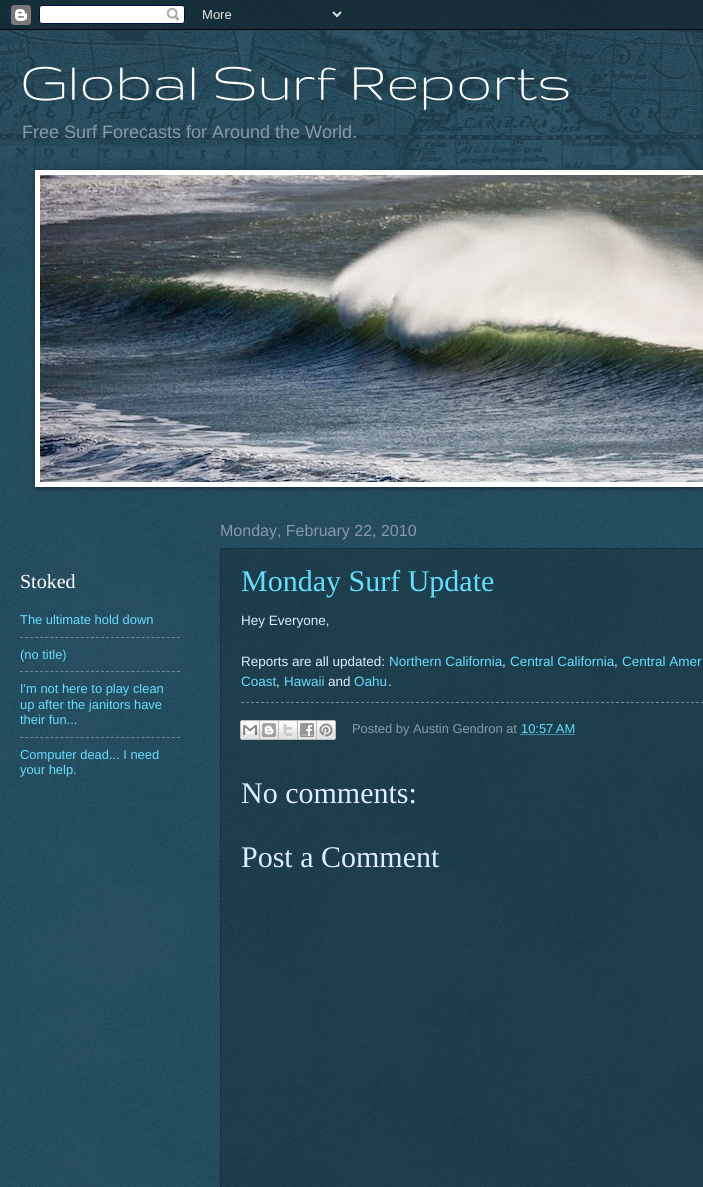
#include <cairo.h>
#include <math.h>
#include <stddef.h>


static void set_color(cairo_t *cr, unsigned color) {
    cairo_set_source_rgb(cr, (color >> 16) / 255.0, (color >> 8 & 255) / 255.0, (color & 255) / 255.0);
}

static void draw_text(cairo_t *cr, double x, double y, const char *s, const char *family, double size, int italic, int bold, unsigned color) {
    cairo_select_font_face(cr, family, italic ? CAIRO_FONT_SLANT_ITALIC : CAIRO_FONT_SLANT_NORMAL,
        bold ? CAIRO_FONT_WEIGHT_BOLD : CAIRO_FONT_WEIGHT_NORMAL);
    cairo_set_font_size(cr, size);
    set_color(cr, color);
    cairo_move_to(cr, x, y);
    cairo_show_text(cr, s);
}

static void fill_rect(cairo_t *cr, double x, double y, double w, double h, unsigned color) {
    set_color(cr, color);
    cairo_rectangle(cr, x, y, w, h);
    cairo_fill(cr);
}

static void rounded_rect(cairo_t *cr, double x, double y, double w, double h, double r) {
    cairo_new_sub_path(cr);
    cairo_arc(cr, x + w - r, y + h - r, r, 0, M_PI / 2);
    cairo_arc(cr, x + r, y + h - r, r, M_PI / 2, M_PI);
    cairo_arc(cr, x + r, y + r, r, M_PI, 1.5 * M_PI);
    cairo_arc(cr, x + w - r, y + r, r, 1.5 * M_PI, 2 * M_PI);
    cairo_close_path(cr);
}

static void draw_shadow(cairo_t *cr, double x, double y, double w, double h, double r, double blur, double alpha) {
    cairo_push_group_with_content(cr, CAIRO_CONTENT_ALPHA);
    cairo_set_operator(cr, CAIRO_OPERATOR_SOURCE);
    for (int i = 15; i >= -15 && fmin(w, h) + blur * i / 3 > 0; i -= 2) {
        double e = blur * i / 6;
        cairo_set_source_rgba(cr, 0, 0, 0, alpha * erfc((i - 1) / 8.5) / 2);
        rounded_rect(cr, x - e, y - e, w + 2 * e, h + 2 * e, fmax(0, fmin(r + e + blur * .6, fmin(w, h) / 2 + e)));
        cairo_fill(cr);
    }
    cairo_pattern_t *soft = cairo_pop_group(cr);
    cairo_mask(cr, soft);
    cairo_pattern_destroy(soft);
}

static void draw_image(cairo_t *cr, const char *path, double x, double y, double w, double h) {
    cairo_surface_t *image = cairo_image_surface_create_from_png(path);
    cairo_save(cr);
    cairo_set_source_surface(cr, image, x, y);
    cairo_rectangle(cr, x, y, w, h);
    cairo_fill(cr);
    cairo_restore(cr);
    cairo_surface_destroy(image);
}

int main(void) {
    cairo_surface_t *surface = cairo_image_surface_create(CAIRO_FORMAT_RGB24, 703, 1187);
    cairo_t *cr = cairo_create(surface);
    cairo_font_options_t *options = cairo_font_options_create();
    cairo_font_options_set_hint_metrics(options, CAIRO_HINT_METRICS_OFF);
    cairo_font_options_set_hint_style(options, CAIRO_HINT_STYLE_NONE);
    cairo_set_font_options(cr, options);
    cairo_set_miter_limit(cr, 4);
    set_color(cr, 0x002F44);
    cairo_paint(cr);
    draw_image(cr, "assets/img1.png", 0, 0, 703, 1187);
    draw_image(cr, "assets/img2.png", 0, 0, 703, 30);
    draw_image(cr, "assets/img3.png", 0, 30, 703, 240);
    draw_text(cr, 20, 100, "Global Surf Reports", "Gruppo", 60, 0, 0, 0xFFFFFF);
    draw_text(cr, 22, 138, "Free Surf Forecasts for Around the World.", "Liberation Sans", 18, 0, 0, 0x8899AA);
    set_color(cr, 0x000000);
    draw_shadow(cr, 36, 171, 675, 317, 0, 2.5, 0.5);
    fill_rect(cr, 35, 170, 668, 317, 0xFFFFFF);
    draw_image(cr, "assets/img4.png", 40, 175, 663, 307);
    draw_text(cr, 20, 588, "Stoked", "Liberation Serif", 20, 0, 0, 0xFFFFFF);
    draw_text(cr, 20, 624, "The ultimate hold down", "Liberation Sans", 12.9, 0, 0, 0x66DDFF);
    cairo_new_path(cr);
    cairo_move_to(cr, 20, 637.5);
    cairo_line_to(cr, 180, 637.5);
    set_color(cr, 0x778899);
    cairo_set_line_width(cr, 1);
    cairo_set_dash(cr, (double[]){3, 2.06}, 2, 0);
    cairo_stroke(cr);
    draw_text(cr, 20, 659, "(no title)", "Liberation Sans", 12.9, 0, 0, 0x66DDFF);
    cairo_new_path(cr);
    cairo_move_to(cr, 20, 671.5);
    cairo_line_to(cr, 180, 671.5);
    set_color(cr, 0x778899);
    cairo_stroke(cr);
    draw_text(cr, 20, 693, "I'm not here to play clean", "Liberation Sans", 12.9, 0, 0, 0x66DDFF);
    draw_text(cr, 20, 709, "up after the janitors have", "Liberation Sans", 12.9, 0, 0, 0x66DDFF);
    draw_text(cr, 20, 724, "their fun...", "Liberation Sans", 12.9, 0, 0, 0x66DDFF);
    cairo_new_path(cr);
    cairo_move_to(cr, 20, 737.5);
    cairo_line_to(cr, 180, 737.5);
    set_color(cr, 0x778899);
    cairo_stroke(cr);
    draw_text(cr, 20, 759, "Computer dead... I need", "Liberation Sans", 12.9, 0, 0, 0x66DDFF);
    draw_text(cr, 20, 774, "your help.", "Liberation Sans", 12.9, 0, 0, 0x66DDFF);
    draw_text(cr, 220, 536, "Monday, February 22, 2010", "Liberation Sans", 16, 0, 0, 0x8899AA);
    cairo_set_source_rgba(cr, 0, 0, 0, 0.2);
    cairo_rectangle(cr, 220, 548, 483, 639);
    cairo_fill(cr);
    cairo_new_path(cr);
    cairo_move_to(cr, 220, 548.5);
    cairo_line_to(cr, 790, 548.5);
    set_color(cr, 0x112233);
    cairo_set_dash(cr, (double[]){1, 1}, 2, 0);
    cairo_stroke(cr);
    cairo_new_path(cr);
    cairo_move_to(cr, 220.5, 548);
    cairo_line_to(cr, 220.5, 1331);
    cairo_stroke(cr);
    draw_text(cr, 241, 591, "Monday Surf Update", "Liberation Serif", 30, 0, 0, 0x66DDFF);
    draw_text(cr, 241, 625, "Hey Everyone,", "Liberation Sans", 13.5, 0, 0, 0xDDEEFF);
    draw_text(cr, 241, 666, "Reports are all updated:", "Liberation Sans", 13.5, 0, 0, 0xDDEEFF);
    draw_text(cr, 389, 666, "Northern California", "Liberation Sans", 13.5, 0, 0, 0x66DDFF);
    draw_text(cr, 502, 666, ",", "Liberation Sans", 13.5, 0, 0, 0xDDEEFF);
    draw_text(cr, 510, 666, "Central California", "Liberation Sans", 13.5, 0, 0, 0x66DDFF);
    draw_text(cr, 614, 666, ",", "Liberation Sans", 13.5, 0, 0, 0xDDEEFF);
    draw_text(cr, 622, 666, "Central Amer", "Liberation Sans", 13.5, 0, 0, 0x66DDFF);
    draw_text(cr, 241, 686, "Coast", "Liberation Sans", 13.5, 0, 0, 0x66DDFF);
    draw_text(cr, 276, 686, ",", "Liberation Sans", 13.5, 0, 0, 0xDDEEFF);
    draw_text(cr, 284, 686, "Hawaii", "Liberation Sans", 13.5, 0, 0, 0x66DDFF);
    draw_text(cr, 328, 686, "and", "Liberation Sans", 13.5, 0, 0, 0xDDEEFF);
    draw_text(cr, 354, 686, "Oahu", "Liberation Sans", 13.5, 0, 0, 0x66DDFF);
    draw_text(cr, 388, 686, ".", "Liberation Sans", 13.5, 0, 0, 0xDDEEFF);
    cairo_new_path(cr);
    cairo_move_to(cr, 241, 702.5);
    cairo_line_to(cr, 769, 702.5);
    set_color(cr, 0x778899);
    cairo_set_dash(cr, (double[]){3, 2}, 2, 0);
    cairo_stroke(cr);
    draw_image(cr, "assets/img5.png", 240, 720, 20, 20);
    draw_image(cr, "assets/img6.png", 260, 720, 19, 20);
    draw_image(cr, "assets/img7.png", 279, 720, 19, 20);
    draw_image(cr, "assets/img8.png", 298, 720, 19, 20);
    draw_image(cr, "assets/img9.png", 317, 720, 19, 20);
    draw_text(cr, 352, 733, "Posted by Austin Gendron at", "Liberation Sans", 12.9, 0, 0, 0x8899AA);
    draw_text(cr, 521, 733, "10:57 AM", "Liberation Sans", 12.9, 0, 0, 0x66DDFF);
    cairo_new_path(cr);
    cairo_move_to(cr, 520.5, 734.5);
    cairo_line_to(cr, 575, 734.5);
    cairo_set_dash(cr, (double[]){1, 1}, 2, 0);
    cairo_stroke(cr);
    draw_text(cr, 241, 803, "No comments:", "Liberation Serif", 30, 0, 0, 0xDDEEFF);
    draw_text(cr, 241, 867, "Post a Comment", "Liberation Serif", 30, 0, 0, 0xDDEEFF);
    cairo_surface_write_to_png(surface, "output.png");
    cairo_font_options_destroy(options);
    cairo_destroy(cr);
    cairo_surface_destroy(surface);
    return 0;
}
